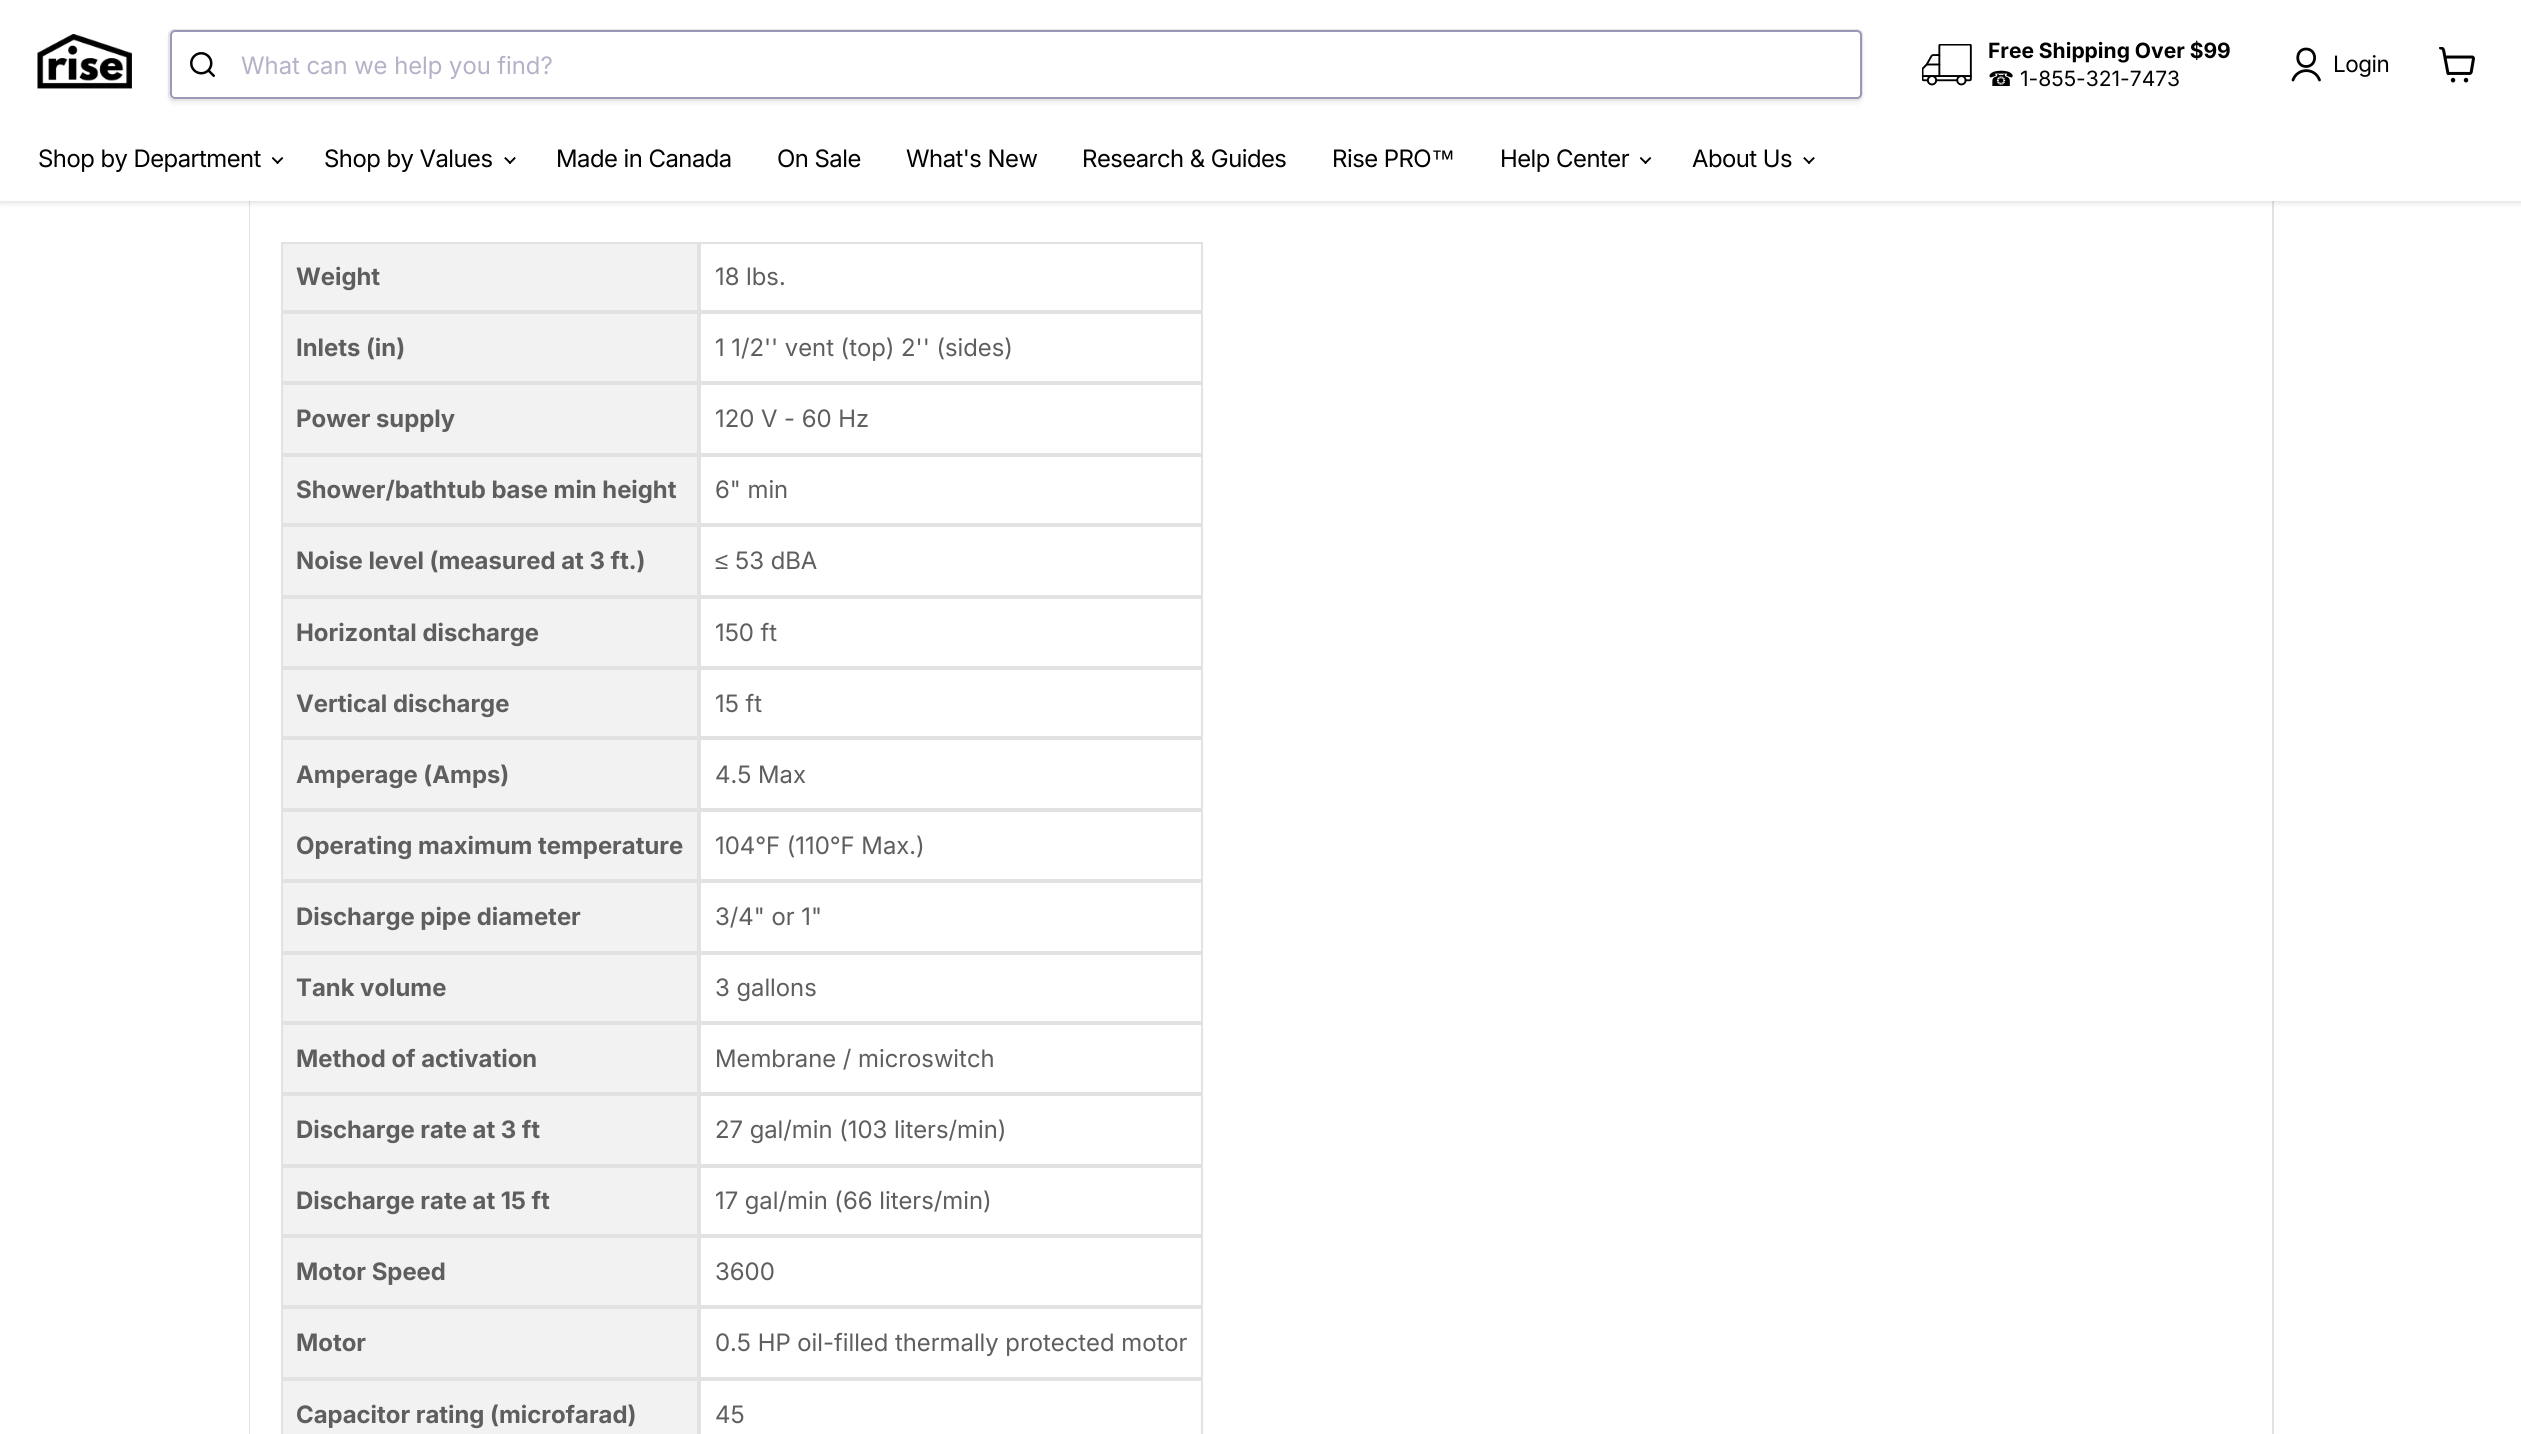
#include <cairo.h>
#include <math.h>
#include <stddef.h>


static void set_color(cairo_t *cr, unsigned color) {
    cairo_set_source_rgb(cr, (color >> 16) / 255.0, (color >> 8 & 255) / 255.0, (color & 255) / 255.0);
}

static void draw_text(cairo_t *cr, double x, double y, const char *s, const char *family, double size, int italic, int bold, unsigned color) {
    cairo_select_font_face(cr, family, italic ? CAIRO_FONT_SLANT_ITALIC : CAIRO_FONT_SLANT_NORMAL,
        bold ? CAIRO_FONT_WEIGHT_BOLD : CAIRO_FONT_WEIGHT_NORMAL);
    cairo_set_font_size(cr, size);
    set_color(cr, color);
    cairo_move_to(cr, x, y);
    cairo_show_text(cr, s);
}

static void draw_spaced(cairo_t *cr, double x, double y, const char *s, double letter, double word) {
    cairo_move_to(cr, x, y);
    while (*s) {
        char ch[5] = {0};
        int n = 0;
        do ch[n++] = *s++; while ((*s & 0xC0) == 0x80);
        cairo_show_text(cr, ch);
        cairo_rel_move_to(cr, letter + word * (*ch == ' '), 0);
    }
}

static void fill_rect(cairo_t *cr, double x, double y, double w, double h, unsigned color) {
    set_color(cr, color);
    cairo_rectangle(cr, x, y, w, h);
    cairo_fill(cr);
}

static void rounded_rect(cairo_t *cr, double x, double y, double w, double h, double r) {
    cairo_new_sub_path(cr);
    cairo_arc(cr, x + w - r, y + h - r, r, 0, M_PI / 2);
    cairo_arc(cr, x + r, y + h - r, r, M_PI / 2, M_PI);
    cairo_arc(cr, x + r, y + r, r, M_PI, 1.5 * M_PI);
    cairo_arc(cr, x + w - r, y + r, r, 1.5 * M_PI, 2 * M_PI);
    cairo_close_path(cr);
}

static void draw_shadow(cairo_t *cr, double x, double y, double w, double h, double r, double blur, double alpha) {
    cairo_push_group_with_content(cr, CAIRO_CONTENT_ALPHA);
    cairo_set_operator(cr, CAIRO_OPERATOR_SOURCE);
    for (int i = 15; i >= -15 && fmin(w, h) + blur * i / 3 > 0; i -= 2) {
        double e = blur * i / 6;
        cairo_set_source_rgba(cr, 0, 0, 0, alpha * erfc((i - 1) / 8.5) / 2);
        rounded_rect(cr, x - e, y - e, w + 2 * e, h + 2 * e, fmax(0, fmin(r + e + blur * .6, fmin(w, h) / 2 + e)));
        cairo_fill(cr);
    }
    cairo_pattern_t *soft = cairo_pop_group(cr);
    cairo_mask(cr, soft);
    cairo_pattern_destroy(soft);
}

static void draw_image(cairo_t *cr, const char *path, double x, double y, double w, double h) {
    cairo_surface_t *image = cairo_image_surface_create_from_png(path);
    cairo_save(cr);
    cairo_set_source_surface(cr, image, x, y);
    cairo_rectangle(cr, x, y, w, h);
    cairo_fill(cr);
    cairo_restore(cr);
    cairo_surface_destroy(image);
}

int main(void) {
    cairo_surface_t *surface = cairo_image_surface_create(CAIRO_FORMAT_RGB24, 2521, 1434);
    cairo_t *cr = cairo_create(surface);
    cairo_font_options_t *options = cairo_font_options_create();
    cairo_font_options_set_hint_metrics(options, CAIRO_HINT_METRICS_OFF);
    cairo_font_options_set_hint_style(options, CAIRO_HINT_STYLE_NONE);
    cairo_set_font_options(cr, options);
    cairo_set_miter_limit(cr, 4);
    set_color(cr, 0xFFFFFF);
    cairo_paint(cr);
    set_color(cr, 0xE2E2E2);
    cairo_set_fill_rule(cr, CAIRO_FILL_RULE_EVEN_ODD);
    cairo_new_path(cr);
    cairo_move_to(cr, 261, 148);
    cairo_line_to(cr, 2262, 148);
    cairo_curve_to(cr, 2269, 148, 2274, 154, 2274, 160);
    cairo_line_to(cr, 2274, 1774);
    cairo_line_to(cr, 249, 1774);
    cairo_line_to(cr, 249, 160);
    cairo_curve_to(cr, 249, 154, 254, 148, 261, 148);
    cairo_close_path(cr);
    cairo_move_to(cr, 261, 150);
    cairo_line_to(cr, 2262, 150);
    cairo_curve_to(cr, 2268, 150, 2272, 155, 2272, 160);
    cairo_line_to(cr, 2272, 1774);
    cairo_line_to(cr, 250, 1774);
    cairo_line_to(cr, 250, 160);
    cairo_curve_to(cr, 250, 155, 255, 150, 261, 150);
    cairo_close_path(cr);
    cairo_fill(cr);
    set_color(cr, 0x808080);
    draw_shadow(cr, 0, 2, 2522, 201, 0, 3, 0.25);
    fill_rect(cr, 0, 0, 2521, 201, 0xFFFFFF);
    draw_image(cr, "assets/img1.png", 37, 34, 95, 55);
    cairo_save(cr);
    cairo_new_path(cr);
    cairo_move_to(cr, 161, 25);
    cairo_line_to(cr, 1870, 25);
    cairo_line_to(cr, 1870, 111);
    cairo_line_to(cr, 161, 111);
    cairo_close_path(cr);
    cairo_move_to(cr, 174, 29);
    cairo_line_to(cr, 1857, 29);
    cairo_curve_to(cr, 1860.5, 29, 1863, 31.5, 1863, 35);
    cairo_line_to(cr, 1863, 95);
    cairo_curve_to(cr, 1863, 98.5, 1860.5, 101, 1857, 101);
    cairo_line_to(cr, 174, 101);
    cairo_curve_to(cr, 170.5, 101, 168, 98.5, 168, 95);
    cairo_line_to(cr, 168, 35);
    cairo_curve_to(cr, 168, 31.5, 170.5, 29, 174, 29);
    cairo_close_path(cr);
    cairo_clip(cr);
    set_color(cr, 0x808080);
    draw_shadow(cr, 168, 32, 1695, 72, 6, 2, 0.11);
    cairo_restore(cr);
    rounded_rect(cr, 169, 30, 1693, 70, 5);
    cairo_set_source_rgba(cr, 0.502, 0.502, 0.502, 0.2);
    cairo_stroke(cr);
    set_color(cr, 0xFFFFFF);
    rounded_rect(cr, 170, 30, 1692, 69, 5);
    cairo_fill(cr);
    rounded_rect(cr, 171, 31, 1690, 67, 4);
    cairo_set_source_rgba(cr, 0.502, 0.494, 0.639, 0.8);
    cairo_stroke(cr);
    draw_image(cr, "assets/img2.png", 190, 52, 25, 25);
    draw_text(cr, 241, 74, "What can we help you find?", "Inter", 24, 0, 0, 0xB3B2C8);
    draw_image(cr, "assets/img3.png", 1922, 44, 50, 42);
    draw_text(cr, 1988, 58, "Free Shipping Over $99", "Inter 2", 21, 0, 1, 0x000000);
    draw_text(cr, 1988, 86, "☎", "DejaVu Sans", 21, 0, 0, 0x000000);
    draw_text(cr, 2020, 86, "1-855-321-7473", "Inter 2", 21, 0, 0, 0x000000);
    cairo_new_path(cr);
    cairo_move_to(cr, 2306, 66.5);
    cairo_curve_to(cr, 2317.5, 66.5, 2317.5, 49, 2306, 49);
    cairo_curve_to(cr, 2295, 49, 2295, 66.5, 2306, 66.5);
    cairo_close_path(cr);
    cairo_move_to(cr, 2319.5, 80);
    cairo_curve_to(cr, 2315, 67.5, 2297.5, 67.5, 2293, 80);
    cairo_set_line_width(cr, 2.8);
    cairo_set_line_cap(cr, CAIRO_LINE_CAP_ROUND);
    cairo_set_line_join(cr, CAIRO_LINE_JOIN_ROUND);
    cairo_stroke(cr);
    cairo_set_font_size(cr, 22.5);
    draw_spaced(cr, 2333, 72, "Login", -0.5, 0);
    draw_image(cr, "assets/img4.png", 2439, 47, 36, 36);
    cairo_select_font_face(cr, "Inter", CAIRO_FONT_SLANT_NORMAL, CAIRO_FONT_WEIGHT_NORMAL);
    cairo_set_font_size(cr, 24);
    draw_spaced(cr, 38, 167, "Shop by Department", -0.5, 0);
    draw_image(cr, "assets/img5.png", 272, 157, 12, 7);
    draw_spaced(cr, 324, 167, "Shop by Values", -0.5, 0);
    draw_image(cr, "assets/img6.png", 504, 157, 12, 7);
    draw_spaced(cr, 556, 167, "Made in Canada", -0.5, 0);
    draw_spaced(cr, 777, 167, "On Sale", -0.5, 0);
    draw_spaced(cr, 906, 167, "What's New", -0.5, 0);
    draw_spaced(cr, 1082, 167, "Research & Guides", -0.5, 0);
    draw_spaced(cr, 1332, 167, "Rise PRO", -0.5, 0);
    cairo_select_font_face(cr, "Liberation Sans", CAIRO_FONT_SLANT_NORMAL, CAIRO_FONT_WEIGHT_NORMAL);
    draw_spaced(cr, 1431, 167, "™", -0.5, 0);
    cairo_select_font_face(cr, "Inter", CAIRO_FONT_SLANT_NORMAL, CAIRO_FONT_WEIGHT_NORMAL);
    draw_spaced(cr, 1500, 167, "Help Center", -0.5, 0);
    draw_image(cr, "assets/img5.png", 1640, 157, 12, 7);
    draw_spaced(cr, 1692, 167, "About Us", -0.5, 0);
    draw_image(cr, "assets/img6.png", 1803, 157, 12, 7);
    set_color(cr, 0xF2F2F2);
    cairo_rectangle(cr, 282, 243, 416, 68);
    cairo_fill_preserve(cr);
    set_color(cr, 0xE2E2E2);
    cairo_set_line_width(cr, 2);
    cairo_set_line_cap(cr, CAIRO_LINE_CAP_BUTT);
    cairo_set_line_join(cr, CAIRO_LINE_JOIN_MITER);
    cairo_stroke(cr);
    draw_text(cr, 296, 285, "Weight", "Inter", 24, 0, 1, 0x5E5E5E);
    cairo_rectangle(cr, 700, 243, 502, 68);
    set_color(cr, 0xE2E2E2);
    cairo_stroke(cr);
    draw_text(cr, 715, 285, "18 lbs.", "Inter", 24, 0, 0, 0x5E5E5E);
    set_color(cr, 0xF2F2F2);
    cairo_rectangle(cr, 282, 313, 416, 69);
    cairo_fill_preserve(cr);
    set_color(cr, 0xE2E2E2);
    cairo_stroke(cr);
    draw_text(cr, 296, 356, "Inlets (in)", "Inter", 24, 0, 1, 0x5E5E5E);
    cairo_rectangle(cr, 700, 313, 502, 69);
    set_color(cr, 0xE2E2E2);
    cairo_stroke(cr);
    draw_text(cr, 715, 356, "1 1/2'' vent (top) 2'' (sides)", "Inter", 24, 0, 0, 0x5E5E5E);
    set_color(cr, 0xF2F2F2);
    cairo_rectangle(cr, 282, 384, 416, 70);
    cairo_fill_preserve(cr);
    set_color(cr, 0xE2E2E2);
    cairo_stroke(cr);
    draw_text(cr, 296, 427, "Power supply", "Inter", 24, 0, 1, 0x5E5E5E);
    cairo_rectangle(cr, 700, 384, 502, 70);
    set_color(cr, 0xE2E2E2);
    cairo_stroke(cr);
    draw_text(cr, 715, 427, "120 V - 60 Hz", "Inter", 24, 0, 0, 0x5E5E5E);
    set_color(cr, 0xF2F2F2);
    cairo_rectangle(cr, 282, 456, 416, 68);
    cairo_fill_preserve(cr);
    set_color(cr, 0xE2E2E2);
    cairo_stroke(cr);
    draw_text(cr, 296, 498, "Shower/bathtub base min height", "Inter", 24, 0, 1, 0x5E5E5E);
    cairo_rectangle(cr, 700, 456, 502, 68);
    set_color(cr, 0xE2E2E2);
    cairo_stroke(cr);
    draw_text(cr, 715, 498, "6\" min", "Inter", 24, 0, 0, 0x5E5E5E);
    set_color(cr, 0xF2F2F2);
    cairo_rectangle(cr, 282, 526, 416, 70);
    cairo_fill_preserve(cr);
    set_color(cr, 0xE2E2E2);
    cairo_stroke(cr);
    draw_text(cr, 296, 569, "Noise level (measured at 3 ft.)", "Inter", 24, 0, 1, 0x5E5E5E);
    cairo_rectangle(cr, 700, 526, 502, 70);
    set_color(cr, 0xE2E2E2);
    cairo_stroke(cr);
    draw_text(cr, 715, 569, "≤", "Liberation Sans", 24, 0, 0, 0x5E5E5E);
    draw_text(cr, 735, 569, "53 dBA", "Inter", 24, 0, 0, 0x5E5E5E);
    set_color(cr, 0xF2F2F2);
    cairo_rectangle(cr, 282, 598, 416, 69);
    cairo_fill_preserve(cr);
    set_color(cr, 0xE2E2E2);
    cairo_stroke(cr);
    draw_text(cr, 296, 641, "Horizontal discharge", "Inter", 24, 0, 1, 0x5E5E5E);
    cairo_rectangle(cr, 700, 598, 502, 69);
    set_color(cr, 0xE2E2E2);
    cairo_stroke(cr);
    draw_text(cr, 715, 641, "150 ft", "Inter", 24, 0, 0, 0x5E5E5E);
    set_color(cr, 0xF2F2F2);
    cairo_rectangle(cr, 282, 669, 416, 68);
    cairo_fill_preserve(cr);
    set_color(cr, 0xE2E2E2);
    cairo_stroke(cr);
    draw_text(cr, 296, 712, "Vertical discharge", "Inter", 24, 0, 1, 0x5E5E5E);
    cairo_rectangle(cr, 700, 669, 502, 68);
    set_color(cr, 0xE2E2E2);
    cairo_stroke(cr);
    draw_text(cr, 715, 712, "15 ft", "Inter", 24, 0, 0, 0x5E5E5E);
    set_color(cr, 0xF2F2F2);
    cairo_rectangle(cr, 282, 739, 416, 70);
    cairo_fill_preserve(cr);
    set_color(cr, 0xE2E2E2);
    cairo_stroke(cr);
    draw_text(cr, 296, 783, "Amperage (Amps)", "Inter", 24, 0, 1, 0x5E5E5E);
    cairo_rectangle(cr, 700, 739, 502, 70);
    set_color(cr, 0xE2E2E2);
    cairo_stroke(cr);
    draw_text(cr, 715, 783, "4.5 Max", "Inter", 24, 0, 0, 0x5E5E5E);
    set_color(cr, 0xF2F2F2);
    cairo_rectangle(cr, 282, 811, 416, 69);
    cairo_fill_preserve(cr);
    set_color(cr, 0xE2E2E2);
    cairo_stroke(cr);
    draw_text(cr, 296, 854, "Operating maximum temperature", "Inter", 24, 0, 1, 0x5E5E5E);
    cairo_rectangle(cr, 700, 811, 502, 69);
    set_color(cr, 0xE2E2E2);
    cairo_stroke(cr);
    draw_text(cr, 715, 854, "104°F (110°F Max.)", "Inter", 24, 0, 0, 0x5E5E5E);
    set_color(cr, 0xF2F2F2);
    cairo_rectangle(cr, 282, 882, 416, 70);
    cairo_fill_preserve(cr);
    set_color(cr, 0xE2E2E2);
    cairo_stroke(cr);
    draw_text(cr, 296, 925, "Discharge pipe diameter", "Inter", 24, 0, 1, 0x5E5E5E);
    cairo_rectangle(cr, 700, 882, 502, 70);
    set_color(cr, 0xE2E2E2);
    cairo_stroke(cr);
    draw_text(cr, 715, 925, "3/4\" or 1\"", "Inter", 24, 0, 0, 0x5E5E5E);
    set_color(cr, 0xF2F2F2);
    cairo_rectangle(cr, 282, 954, 416, 68);
    cairo_fill_preserve(cr);
    set_color(cr, 0xE2E2E2);
    cairo_stroke(cr);
    draw_text(cr, 296, 996, "Tank volume", "Inter", 24, 0, 1, 0x5E5E5E);
    cairo_rectangle(cr, 700, 954, 502, 68);
    set_color(cr, 0xE2E2E2);
    cairo_stroke(cr);
    draw_text(cr, 715, 996, "3 gallons", "Inter", 24, 0, 0, 0x5E5E5E);
    set_color(cr, 0xF2F2F2);
    cairo_rectangle(cr, 282, 1024, 416, 69);
    cairo_fill_preserve(cr);
    set_color(cr, 0xE2E2E2);
    cairo_stroke(cr);
    draw_text(cr, 296, 1067, "Method of activation", "Inter", 24, 0, 1, 0x5E5E5E);
    cairo_rectangle(cr, 700, 1024, 502, 69);
    set_color(cr, 0xE2E2E2);
    cairo_stroke(cr);
    draw_text(cr, 715, 1067, "Membrane / microswitch", "Inter", 24, 0, 0, 0x5E5E5E);
    set_color(cr, 0xF2F2F2);
    cairo_rectangle(cr, 282, 1095, 416, 70);
    cairo_fill_preserve(cr);
    set_color(cr, 0xE2E2E2);
    cairo_stroke(cr);
    draw_text(cr, 296, 1138, "Discharge rate at 3 ft", "Inter", 24, 0, 1, 0x5E5E5E);
    cairo_rectangle(cr, 700, 1095, 502, 70);
    set_color(cr, 0xE2E2E2);
    cairo_stroke(cr);
    draw_text(cr, 715, 1138, "27 gal/min (103 liters/min)", "Inter", 24, 0, 0, 0x5E5E5E);
    set_color(cr, 0xF2F2F2);
    cairo_rectangle(cr, 282, 1167, 416, 68);
    cairo_fill_preserve(cr);
    set_color(cr, 0xE2E2E2);
    cairo_stroke(cr);
    draw_text(cr, 296, 1209, "Discharge rate at 15 ft", "Inter", 24, 0, 1, 0x5E5E5E);
    cairo_rectangle(cr, 700, 1167, 502, 68);
    set_color(cr, 0xE2E2E2);
    cairo_stroke(cr);
    draw_text(cr, 715, 1209, "17 gal/min (66 liters/min)", "Inter", 24, 0, 0, 0x5E5E5E);
    set_color(cr, 0xF2F2F2);
    cairo_rectangle(cr, 282, 1237, 416, 69);
    cairo_fill_preserve(cr);
    set_color(cr, 0xE2E2E2);
    cairo_stroke(cr);
    draw_text(cr, 296, 1280, "Motor Speed", "Inter", 24, 0, 1, 0x5E5E5E);
    cairo_rectangle(cr, 700, 1237, 502, 69);
    set_color(cr, 0xE2E2E2);
    cairo_stroke(cr);
    draw_text(cr, 715, 1280, "3600", "Inter", 24, 0, 0, 0x5E5E5E);
    set_color(cr, 0xF2F2F2);
    cairo_rectangle(cr, 282, 1308, 416, 70);
    cairo_fill_preserve(cr);
    set_color(cr, 0xE2E2E2);
    cairo_stroke(cr);
    draw_text(cr, 296, 1351, "Motor", "Inter", 24, 0, 1, 0x5E5E5E);
    cairo_rectangle(cr, 700, 1308, 502, 70);
    set_color(cr, 0xE2E2E2);
    cairo_stroke(cr);
    draw_text(cr, 715, 1351, "0.5 HP oil-filled thermally protected motor", "Inter", 24, 0, 0, 0x5E5E5E);
    set_color(cr, 0xF2F2F2);
    cairo_rectangle(cr, 282, 1380, 416, 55);
    cairo_fill_preserve(cr);
    set_color(cr, 0xE2E2E2);
    cairo_stroke(cr);
    draw_text(cr, 296, 1423, "Capacitor rating (microfarad)", "Inter", 24, 0, 1, 0x5E5E5E);
    cairo_rectangle(cr, 700, 1380, 502, 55);
    set_color(cr, 0xE2E2E2);
    cairo_stroke(cr);
    draw_text(cr, 715, 1423, "45", "Inter", 24, 0, 0, 0x5E5E5E);
    cairo_surface_write_to_png(surface, "output.png");
    cairo_font_options_destroy(options);
    cairo_destroy(cr);
    cairo_surface_destroy(surface);
    return 0;
}
